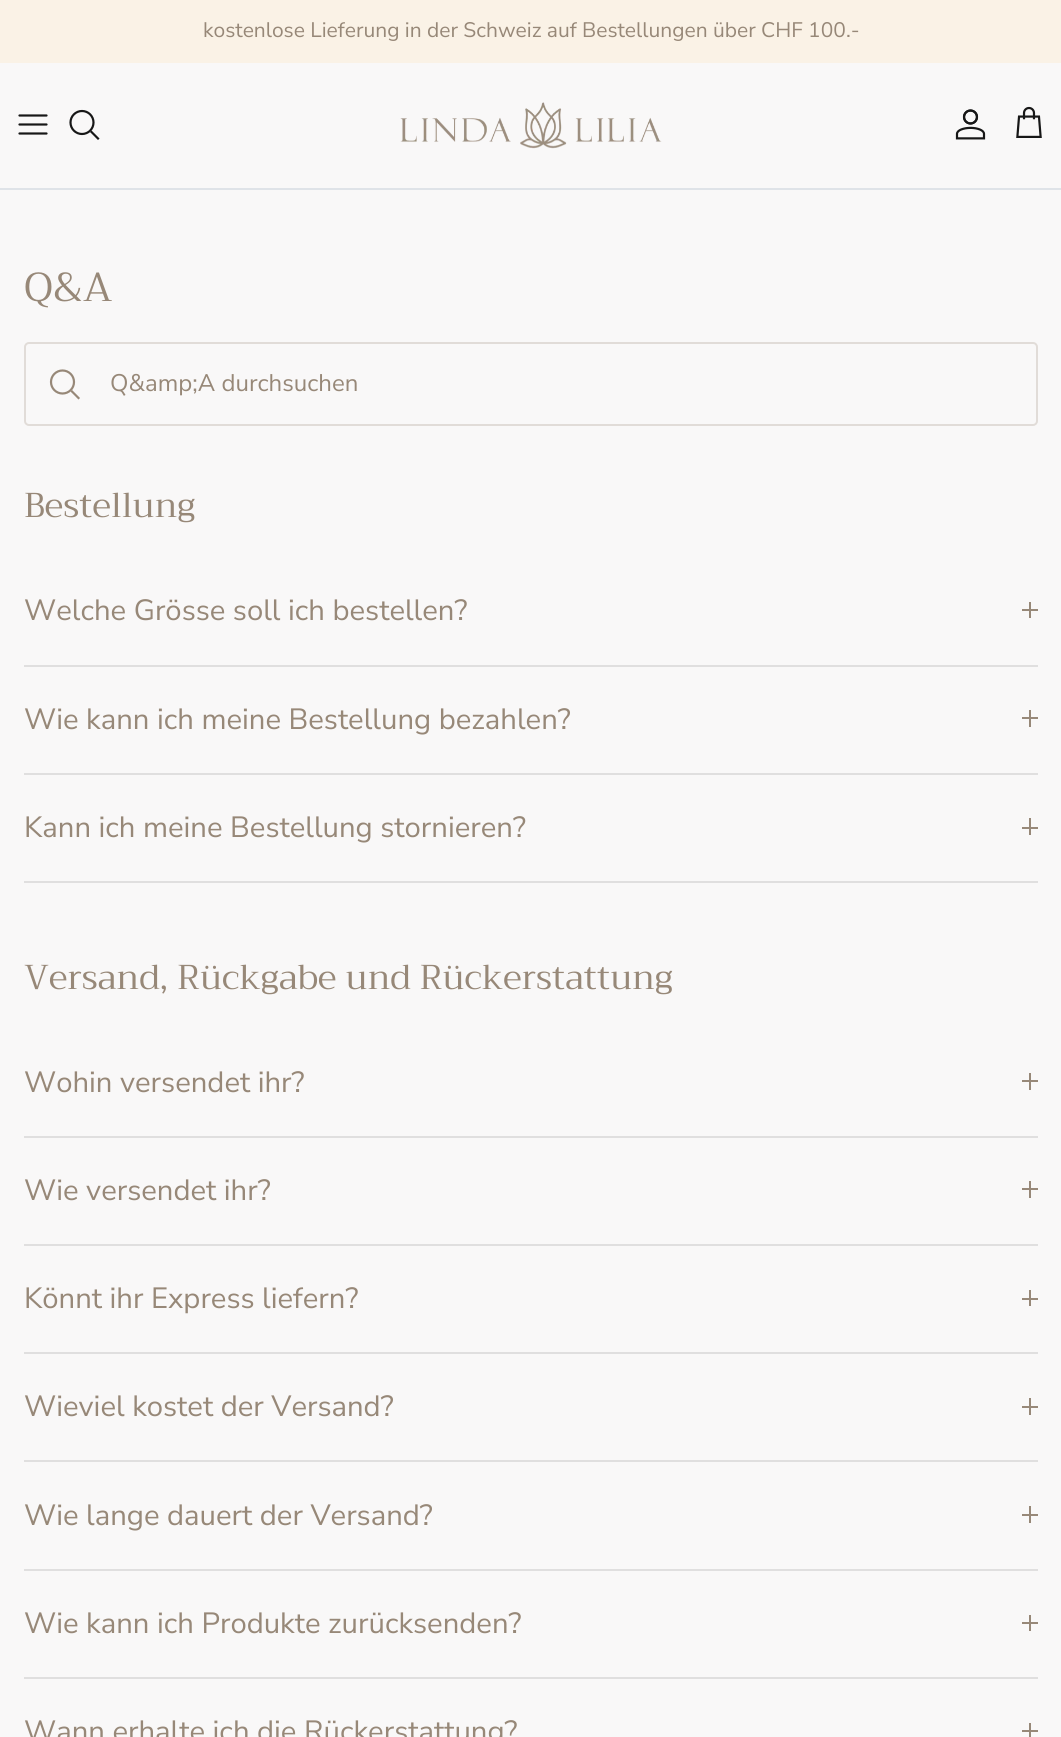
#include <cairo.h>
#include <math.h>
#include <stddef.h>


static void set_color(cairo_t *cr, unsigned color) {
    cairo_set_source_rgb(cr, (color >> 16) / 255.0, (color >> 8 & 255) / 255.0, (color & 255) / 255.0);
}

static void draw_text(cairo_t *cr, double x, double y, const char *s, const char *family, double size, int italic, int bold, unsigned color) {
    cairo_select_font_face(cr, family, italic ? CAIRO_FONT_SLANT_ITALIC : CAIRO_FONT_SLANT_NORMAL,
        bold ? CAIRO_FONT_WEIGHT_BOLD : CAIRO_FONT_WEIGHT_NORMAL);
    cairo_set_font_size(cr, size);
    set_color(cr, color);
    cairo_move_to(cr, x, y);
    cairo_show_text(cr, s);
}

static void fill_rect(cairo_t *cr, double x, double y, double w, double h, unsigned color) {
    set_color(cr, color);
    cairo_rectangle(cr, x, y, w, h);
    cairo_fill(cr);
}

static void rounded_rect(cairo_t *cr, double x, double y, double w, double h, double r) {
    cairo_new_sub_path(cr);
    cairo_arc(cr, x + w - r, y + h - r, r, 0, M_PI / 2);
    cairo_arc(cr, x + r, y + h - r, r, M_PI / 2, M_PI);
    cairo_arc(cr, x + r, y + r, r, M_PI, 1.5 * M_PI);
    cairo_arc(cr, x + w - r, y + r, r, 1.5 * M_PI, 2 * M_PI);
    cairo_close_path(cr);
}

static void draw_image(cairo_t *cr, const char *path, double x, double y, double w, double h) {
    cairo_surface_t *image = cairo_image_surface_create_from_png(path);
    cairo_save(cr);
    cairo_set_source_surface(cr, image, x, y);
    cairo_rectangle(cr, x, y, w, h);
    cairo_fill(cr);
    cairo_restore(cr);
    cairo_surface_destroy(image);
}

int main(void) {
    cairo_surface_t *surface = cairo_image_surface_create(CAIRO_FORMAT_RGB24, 1061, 1737);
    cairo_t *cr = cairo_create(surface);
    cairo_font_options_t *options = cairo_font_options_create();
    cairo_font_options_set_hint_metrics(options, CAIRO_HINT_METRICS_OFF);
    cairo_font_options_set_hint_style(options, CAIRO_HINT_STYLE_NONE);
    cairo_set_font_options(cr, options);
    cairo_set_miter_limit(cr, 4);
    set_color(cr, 0xF9F8F8);
    cairo_paint(cr);
    fill_rect(cr, 0, 0, 1061, 63, 0xFAF2E6);
    draw_text(cr, 203, 37, "kostenlose Lieferung in der Schweiz auf Bestellungen über CHF 100.-", "Nunito Sans", 21, 0, 0, 0x978878);
    fill_rect(cr, 0, 188, 1061, 2, 0xDFE3E8);
    cairo_new_path(cr);
    cairo_move_to(cr, 19.5, 124.5);
    cairo_line_to(cr, 46.5, 124.5);
    cairo_move_to(cr, 19.5, 115.5);
    cairo_line_to(cr, 46.5, 115.5);
    cairo_move_to(cr, 19.5, 133.5);
    cairo_line_to(cr, 46.5, 133.5);
    set_color(cr, 0x171717);
    cairo_set_line_width(cr, 2.2);
    cairo_set_line_cap(cr, CAIRO_LINE_CAP_ROUND);
    cairo_set_line_join(cr, CAIRO_LINE_JOIN_ROUND);
    cairo_stroke(cr);
    cairo_arc(cr, 82, 122.5, 11.5, 0, 2 * M_PI);
    cairo_set_line_cap(cr, CAIRO_LINE_CAP_BUTT);
    cairo_set_line_join(cr, CAIRO_LINE_JOIN_MITER);
    cairo_stroke(cr);
    cairo_new_path(cr);
    cairo_move_to(cr, 91.5, 132);
    cairo_line_to(cr, 98, 138.5);
    cairo_set_line_cap(cr, CAIRO_LINE_CAP_SQUARE);
    cairo_stroke(cr);
    draw_image(cr, "assets/img1.png", 400, 102, 262, 47);
    draw_image(cr, "assets/img2.png", 955, 109, 31, 31);
    draw_image(cr, "assets/img3.png", 1016, 106, 26, 32);
    draw_text(cr, 24, 301, "Q&A", "Trirong", 40.5, 0, 0, 0x978878);
    rounded_rect(cr, 25, 343, 1012, 82, 4);
    set_color(cr, 0xE1DCD8);
    cairo_set_line_width(cr, 2);
    cairo_set_line_cap(cr, CAIRO_LINE_CAP_BUTT);
    cairo_stroke(cr);
    cairo_arc(cr, 62.5, 382, 11.5, 0, 2 * M_PI);
    set_color(cr, 0x978878);
    cairo_set_line_width(cr, 2.2);
    cairo_stroke(cr);
    cairo_new_path(cr);
    cairo_move_to(cr, 72, 391.5);
    cairo_line_to(cr, 78.5, 398);
    cairo_set_line_cap(cr, CAIRO_LINE_CAP_SQUARE);
    cairo_stroke(cr);
    draw_text(cr, 110, 391, "Q&amp;A durchsuchen", "Nunito Sans", 24, 0, 0, 0x978878);
    draw_text(cr, 24, 517, "Bestellung", "Trirong", 34.5, 0, 0, 0x978878);
    fill_rect(cr, 24, 665, 1014, 2, 0xE0DFDF);
    draw_text(cr, 24, 620, "Welche Grösse soll ich bestellen?", "Nunito Sans", 29.25, 0, 0, 0x978878);
    fill_rect(cr, 1029, 602, 2, 16, 0x978878);
    fill_rect(cr, 1022, 609, 16, 2, 0x978878);
    fill_rect(cr, 24, 773, 1014, 2, 0xE0DFDF);
    draw_text(cr, 24, 729, "Wie kann ich meine Bestellung bezahlen?", "Nunito Sans", 29.25, 0, 0, 0x978878);
    fill_rect(cr, 1029, 710, 2, 17, 0x978878);
    fill_rect(cr, 1022, 717, 16, 2, 0x978878);
    fill_rect(cr, 24, 881, 1014, 2, 0xE0DFDF);
    draw_text(cr, 24, 837, "Kann ich meine Bestellung stornieren?", "Nunito Sans", 29.25, 0, 0, 0x978878);
    fill_rect(cr, 1029, 818, 2, 17, 0x978878);
    fill_rect(cr, 1022, 827, 16, 2, 0x978878);
    draw_text(cr, 24, 989, "Versand, Rückgabe und Rückerstattung", "Trirong", 34.5, 0, 0, 0x978878);
    fill_rect(cr, 24, 1136, 1014, 2, 0xE0DFDF);
    draw_text(cr, 24, 1092, "Wohin versendet ihr?", "Nunito Sans", 29.25, 0, 0, 0x978878);
    fill_rect(cr, 1029, 1073, 2, 17, 0x978878);
    fill_rect(cr, 1022, 1080, 16, 2, 0x978878);
    fill_rect(cr, 24, 1244, 1014, 2, 0xE0DFDF);
    draw_text(cr, 24, 1200, "Wie versendet ihr?", "Nunito Sans", 29.25, 0, 0, 0x978878);
    fill_rect(cr, 1029, 1181, 2, 17, 0x978878);
    fill_rect(cr, 1022, 1188, 16, 2, 0x978878);
    fill_rect(cr, 24, 1352, 1014, 2, 0xE0DFDF);
    draw_text(cr, 24, 1308, "Könnt ihr Express liefern?", "Nunito Sans", 29.25, 0, 0, 0x978878);
    fill_rect(cr, 1029, 1290, 2, 16, 0x978878);
    fill_rect(cr, 1022, 1298, 16, 2, 0x978878);
    fill_rect(cr, 24, 1460, 1014, 2, 0xE0DFDF);
    draw_text(cr, 24, 1416, "Wieviel kostet der Versand?", "Nunito Sans", 29.25, 0, 0, 0x978878);
    fill_rect(cr, 1029, 1398, 2, 17, 0x978878);
    fill_rect(cr, 1022, 1406, 16, 2, 0x978878);
    fill_rect(cr, 24, 1569, 1014, 2, 0xE0DFDF);
    draw_text(cr, 24, 1525, "Wie lange dauert der Versand?", "Nunito Sans", 29.25, 0, 0, 0x978878);
    fill_rect(cr, 1029, 1506, 2, 17, 0x978878);
    fill_rect(cr, 1022, 1514, 16, 2, 0x978878);
    fill_rect(cr, 24, 1677, 1014, 2, 0xE0DFDF);
    draw_text(cr, 24, 1633, "Wie kann ich Produkte zurücksenden?", "Nunito Sans", 29.25, 0, 0, 0x978878);
    fill_rect(cr, 1029, 1615, 2, 16, 0x978878);
    fill_rect(cr, 1022, 1622, 16, 2, 0x978878);
    draw_text(cr, 24, 1741, "Wann erhalte ich die Rückerstattung?", "Nunito Sans", 29.25, 0, 0, 0x978878);
    fill_rect(cr, 1029, 1723, 2, 14, 0x978878);
    fill_rect(cr, 1022, 1730, 16, 2, 0x978878);
    cairo_surface_write_to_png(surface, "output.png");
    cairo_font_options_destroy(options);
    cairo_destroy(cr);
    cairo_surface_destroy(surface);
    return 0;
}
